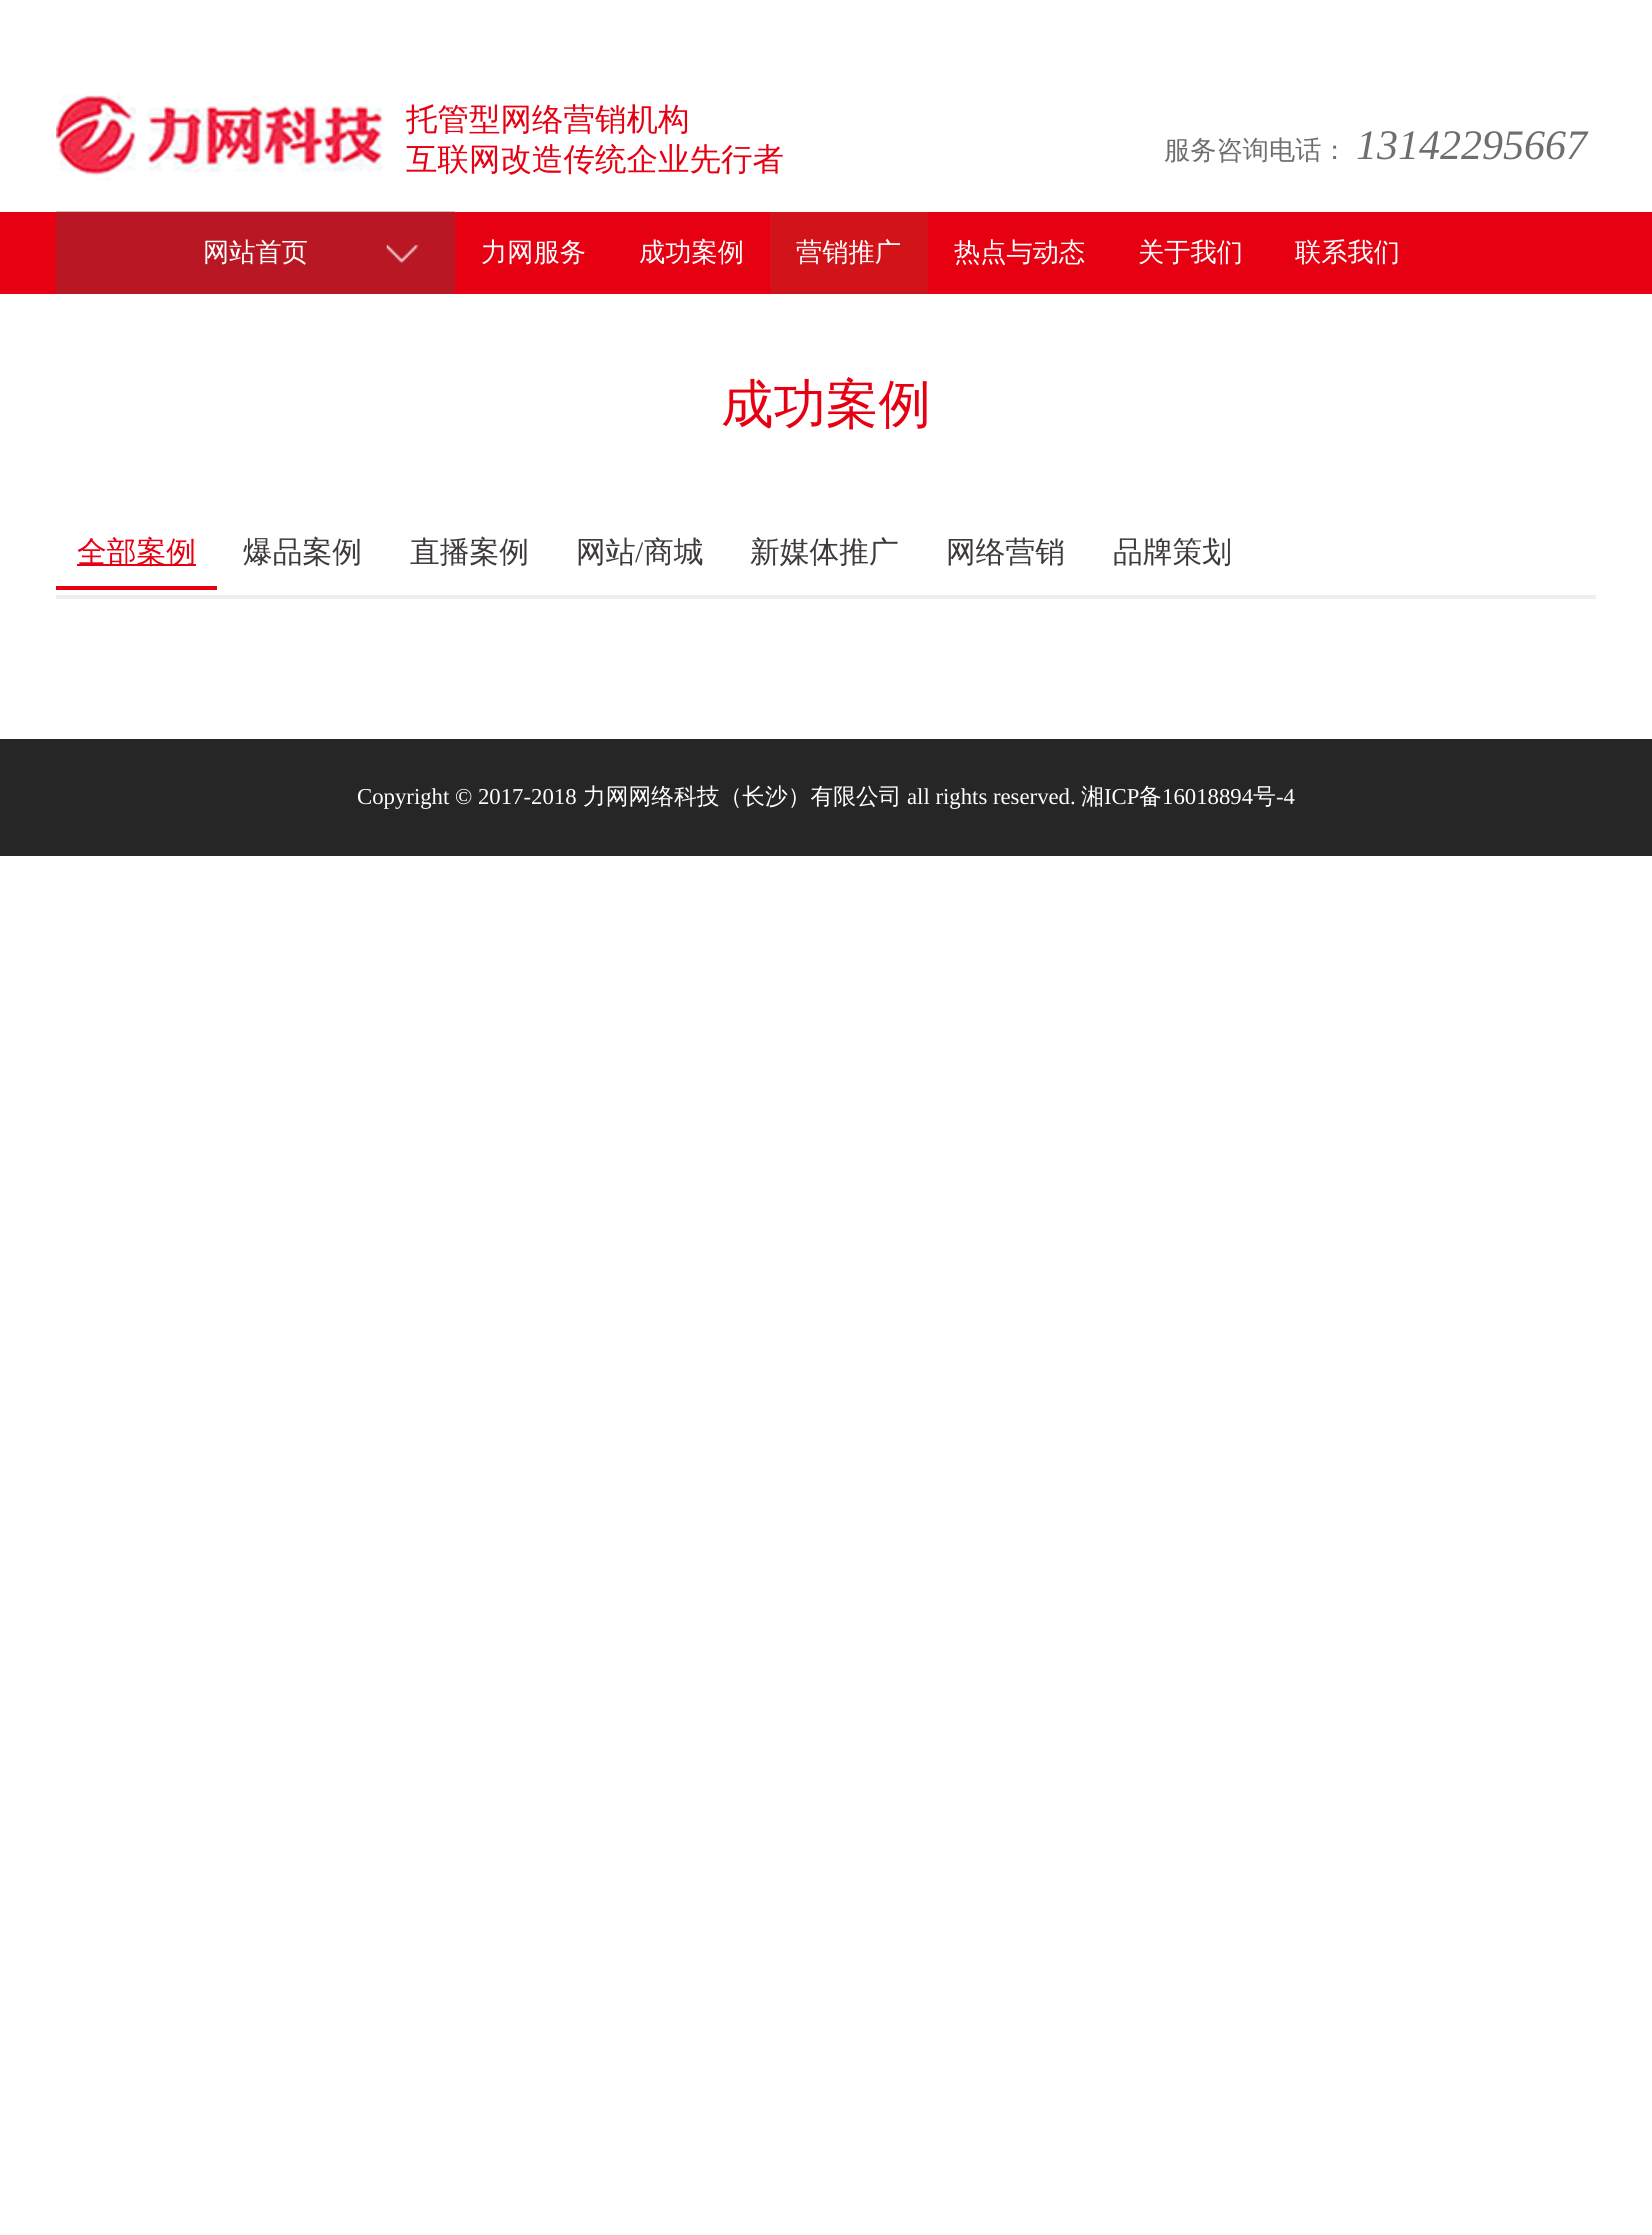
#include <cairo.h>
#include <math.h>
#include <stddef.h>


static void set_color(cairo_t *cr, unsigned color) {
    cairo_set_source_rgb(cr, (color >> 16) / 255.0, (color >> 8 & 255) / 255.0, (color & 255) / 255.0);
}

static void draw_text(cairo_t *cr, double x, double y, const char *s, const char *family, double size, int italic, int bold, unsigned color) {
    cairo_select_font_face(cr, family, italic ? CAIRO_FONT_SLANT_ITALIC : CAIRO_FONT_SLANT_NORMAL,
        bold ? CAIRO_FONT_WEIGHT_BOLD : CAIRO_FONT_WEIGHT_NORMAL);
    cairo_set_font_size(cr, size);
    set_color(cr, color);
    cairo_move_to(cr, x, y);
    cairo_show_text(cr, s);
}

static void fill_rect(cairo_t *cr, double x, double y, double w, double h, unsigned color) {
    set_color(cr, color);
    cairo_rectangle(cr, x, y, w, h);
    cairo_fill(cr);
}

static void draw_image(cairo_t *cr, const char *path, double x, double y, double w, double h) {
    cairo_surface_t *image = cairo_image_surface_create_from_png(path);
    cairo_save(cr);
    cairo_set_source_surface(cr, image, x, y);
    cairo_rectangle(cr, x, y, w, h);
    cairo_fill(cr);
    cairo_restore(cr);
    cairo_surface_destroy(image);
}

int main(void) {
    cairo_surface_t *surface = cairo_image_surface_create(CAIRO_FORMAT_RGB24, 1652, 2235);
    cairo_t *cr = cairo_create(surface);
    cairo_font_options_t *options = cairo_font_options_create();
    cairo_font_options_set_hint_metrics(options, CAIRO_HINT_METRICS_OFF);
    cairo_font_options_set_hint_style(options, CAIRO_HINT_STYLE_NONE);
    cairo_set_font_options(cr, options);
    cairo_set_miter_limit(cr, 4);
    set_color(cr, 0xFFFFFF);
    cairo_paint(cr);
    fill_rect(cr, 56, 211, 399, 1, 0xC9C9C9);
    draw_image(cr, "assets/img1.png", 56, 94, 326, 86);
    draw_text(cr, 406, 130, "托管型网络营销机构", "WenQuanYi Zen Hei Medium", 31.5, 0, 0, 0xE60012);
    draw_text(cr, 406, 170, "互联网改造传统企业先行者", "WenQuanYi Zen Hei Medium", 31.5, 0, 0, 0xE60012);
    draw_text(cr, 1164, 159, "服务咨询电话：", "WenQuanYi Zen Hei Medium", 26.25, 0, 0, 0x6F6E6F);
    draw_text(cr, 1356, 159, "13142295667", "Liberation Serif", 42, 1, 0, 0x6F6E6F);
    fill_rect(cr, 0, 212, 1652, 82, 0xE60012);
    fill_rect(cr, 56, 212, 399, 82, 0xB81723);
    draw_image(cr, "assets/img2.png", 386, 245, 33, 18);
    draw_text(cr, 203, 261, "网站首页", "WenQuanYi Zen Hei Medium", 26.25, 0, 0, 0xFFFFFF);
    draw_text(cr, 481, 261, "力网服务", "WenQuanYi Zen Hei Medium", 26.25, 0, 0, 0xFFFFFF);
    draw_text(cr, 639, 261, "成功案例", "WenQuanYi Zen Hei Medium", 26.25, 0, 0, 0xFFFFFF);
    fill_rect(cr, 770, 212, 158, 82, 0xD21319);
    draw_text(cr, 796, 261, "营销推广", "WenQuanYi Zen Hei Medium", 26.25, 0, 0, 0xFFFFFF);
    draw_text(cr, 954, 261, "热点与动态", "WenQuanYi Zen Hei Medium", 26.25, 0, 0, 0xFFFFFF);
    draw_text(cr, 1138, 261, "关于我们", "WenQuanYi Zen Hei Medium", 26.25, 0, 0, 0xFFFFFF);
    draw_text(cr, 1295, 261, "联系我们", "WenQuanYi Zen Hei Medium", 26.25, 0, 0, 0xFFFFFF);
    draw_text(cr, 721, 422, "成功案例", "WenQuanYi Zen Hei Medium", 52.5, 0, 0, 0xE60012);
    fill_rect(cr, 56, 595, 1540, 4, 0xEFEFEF);
    fill_rect(cr, 77, 564, 119, 2, 0xE60012);
    draw_text(cr, 77, 562, "全部案例", "WenQuanYi Zen Hei Medium", 29.75, 0, 0, 0xE60012);
    fill_rect(cr, 56, 586, 161, 4, 0xE60012);
    draw_text(cr, 243, 562, "爆品案例", "WenQuanYi Zen Hei Medium", 29.75, 0, 0, 0x3E3A39);
    draw_text(cr, 410, 562, "直播案例", "WenQuanYi Zen Hei Medium", 29.75, 0, 0, 0x3E3A39);
    draw_text(cr, 576, 562, "网站", "WenQuanYi Zen Hei Medium", 29.75, 0, 0, 0x3E3A39);
    draw_text(cr, 635, 562, "/", "Liberation Serif", 29.75, 0, 0, 0x3E3A39);
    draw_text(cr, 644, 562, "商城", "WenQuanYi Zen Hei Medium", 29.75, 0, 0, 0x3E3A39);
    draw_text(cr, 750, 562, "新媒体推广", "WenQuanYi Zen Hei Medium", 29.75, 0, 0, 0x3E3A39);
    draw_text(cr, 946, 562, "网络营销", "WenQuanYi Zen Hei Medium", 29.75, 0, 0, 0x3E3A39);
    draw_text(cr, 1113, 562, "品牌策划", "WenQuanYi Zen Hei Medium", 29.75, 0, 0, 0x3E3A39);
    fill_rect(cr, 0, 739, 1652, 117, 0x262626);
    draw_text(cr, 357, 804, "Copyright © 2017-2018", "Liberation Serif", 22.75, 0, 0, 0xFFFFFF);
    draw_text(cr, 583, 804, "力网网络科技（长沙）有限公司", "WenQuanYi Zen Hei Medium", 22.75, 0, 0, 0xFFFFFF);
    draw_text(cr, 907, 804, "all rights reserved.", "Liberation Serif", 22.75, 0, 0, 0xFFFFFF);
    draw_text(cr, 1081, 804, "湘", "WenQuanYi Zen Hei Medium", 22.75, 0, 0, 0xFFFFFF);
    draw_text(cr, 1104, 804, "ICP", "Liberation Serif", 22.75, 0, 0, 0xFFFFFF);
    draw_text(cr, 1139, 804, "备", "WenQuanYi Zen Hei Medium", 22.75, 0, 0, 0xFFFFFF);
    draw_text(cr, 1162, 804, "16018894", "Liberation Serif", 22.75, 0, 0, 0xFFFFFF);
    draw_text(cr, 1253, 804, "号", "WenQuanYi Zen Hei Medium", 22.75, 0, 0, 0xFFFFFF);
    draw_text(cr, 1276, 804, "-4", "Liberation Serif", 22.75, 0, 0, 0xFFFFFF);
    cairo_surface_write_to_png(surface, "output.png");
    cairo_font_options_destroy(options);
    cairo_destroy(cr);
    cairo_surface_destroy(surface);
    return 0;
}
